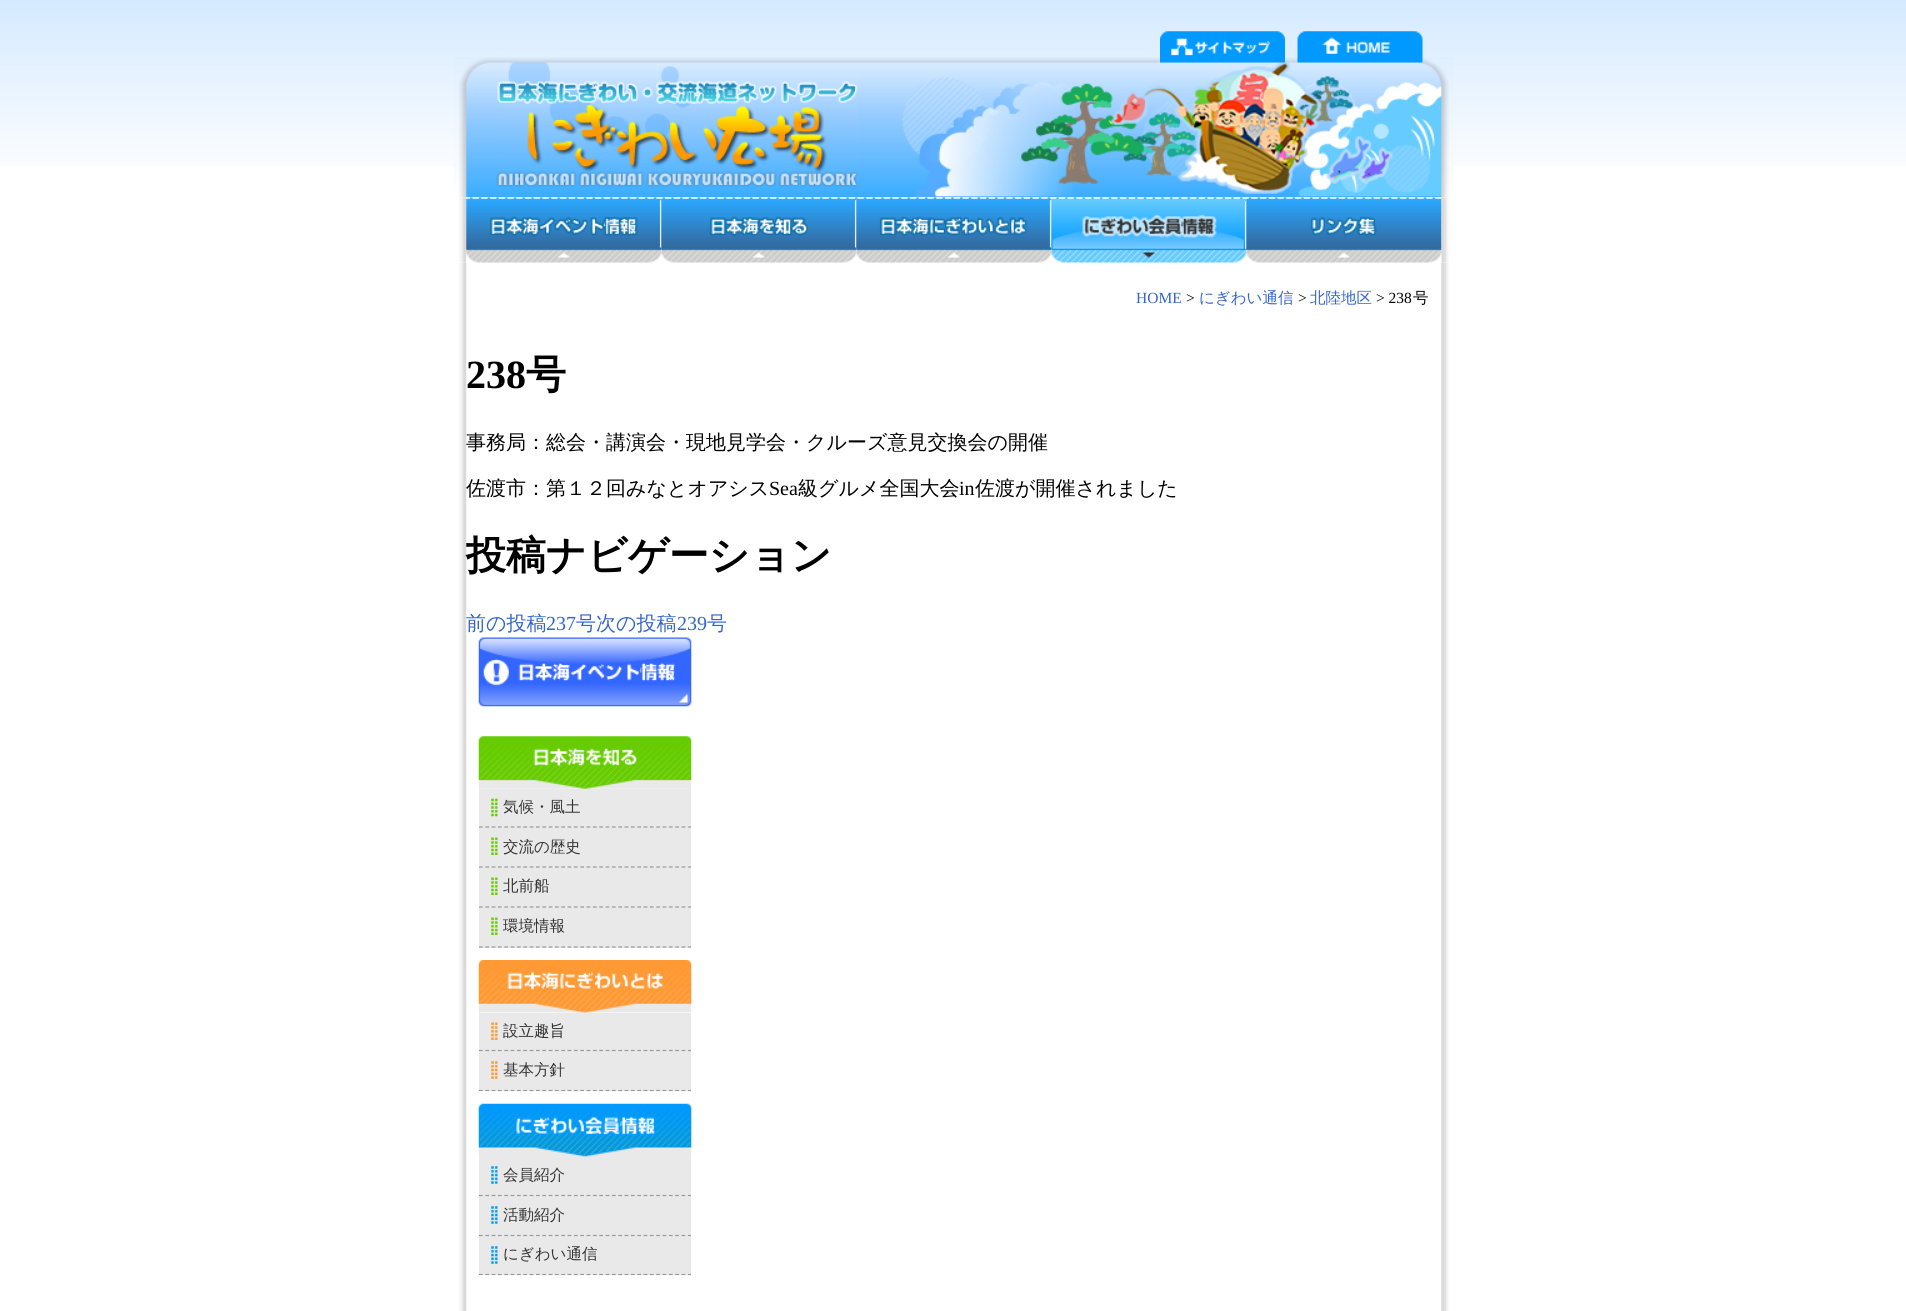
#include <cairo.h>
#include <math.h>
#include <stddef.h>


static void set_color(cairo_t *cr, unsigned color) {
    cairo_set_source_rgb(cr, (color >> 16) / 255.0, (color >> 8 & 255) / 255.0, (color & 255) / 255.0);
}

static void draw_text(cairo_t *cr, double x, double y, const char *s, const char *family, double size, int italic, int bold, unsigned color) {
    cairo_select_font_face(cr, family, italic ? CAIRO_FONT_SLANT_ITALIC : CAIRO_FONT_SLANT_NORMAL,
        bold ? CAIRO_FONT_WEIGHT_BOLD : CAIRO_FONT_WEIGHT_NORMAL);
    cairo_set_font_size(cr, size);
    set_color(cr, color);
    cairo_move_to(cr, x, y);
    cairo_show_text(cr, s);
}

static void fill_rect(cairo_t *cr, double x, double y, double w, double h, unsigned color) {
    set_color(cr, color);
    cairo_rectangle(cr, x, y, w, h);
    cairo_fill(cr);
}

static void draw_image(cairo_t *cr, const char *path, double x, double y, double w, double h) {
    cairo_surface_t *image = cairo_image_surface_create_from_png(path);
    cairo_save(cr);
    cairo_set_source_surface(cr, image, x, y);
    cairo_rectangle(cr, x, y, w, h);
    cairo_fill(cr);
    cairo_restore(cr);
    cairo_surface_destroy(image);
}

int main(void) {
    cairo_surface_t *surface = cairo_image_surface_create(CAIRO_FORMAT_RGB24, 1906, 1311);
    cairo_t *cr = cairo_create(surface);
    cairo_font_options_t *options = cairo_font_options_create();
    cairo_font_options_set_hint_metrics(options, CAIRO_HINT_METRICS_OFF);
    cairo_font_options_set_hint_style(options, CAIRO_HINT_STYLE_NONE);
    cairo_set_font_options(cr, options);
    cairo_set_miter_limit(cr, 4);
    set_color(cr, 0xFFFFFF);
    cairo_paint(cr);
    draw_image(cr, "assets/img1.png", 0, 0, 1906, 166);
    draw_image(cr, "assets/img2.png", 454, 57, 1000, 141);
    draw_image(cr, "assets/img3.png", 1160, 31, 125, 32);
    draw_image(cr, "assets/img4.png", 1297, 31, 126, 32);
    draw_image(cr, "assets/img5.png", 497, 73, 361, 114);
    draw_image(cr, "assets/img6.png", 459, 197, 990, 66);
    draw_image(cr, "assets/img12.png", 459, 262, 990, 1049);
    draw_image(cr, "assets/img7.png", 466, 197, 196, 66);
    draw_image(cr, "assets/img8.png", 661, 197, 196, 66);
    draw_image(cr, "assets/img9.png", 856, 197, 196, 66);
    draw_image(cr, "assets/img10.png", 1051, 197, 196, 66);
    draw_image(cr, "assets/img11.png", 1246, 197, 196, 66);
    draw_text(cr, 1136, 303, "HOME", "Liberation Serif", 15.5, 0, 0, 0x3366CC);
    draw_text(cr, 1186, 303, ">", "Liberation Serif", 15.5, 0, 0, 0x000000);
    draw_text(cr, 1199, 303, "にぎわい通信", "WenQuanYi Zen Hei Medium", 15.5, 0, 0, 0x3366CC);
    draw_text(cr, 1298, 303, ">", "Liberation Serif", 15.5, 0, 0, 0x000000);
    draw_text(cr, 1310, 303, "北陸地区", "WenQuanYi Zen Hei Medium", 15.5, 0, 0, 0x3366CC);
    draw_text(cr, 1376, 303, "> 238", "Liberation Serif", 15.5, 0, 0, 0x000000);
    draw_text(cr, 1413, 303, "号", "WenQuanYi Zen Hei Medium", 15.5, 0, 0, 0x000000);
    draw_text(cr, 466, 388, "238", "Liberation Serif", 40, 0, 1, 0x000000);
    draw_text(cr, 526, 388, "号", "WenQuanYi Zen Hei", 40, 0, 1, 0x000000);
    draw_text(cr, 466, 449, "事務局：総会・講演会・現地見学会・クルーズ意見交換会の開催", "WenQuanYi Zen Hei Medium", 20, 0, 0, 0x000000);
    draw_text(cr, 466, 495, "佐渡市：第１２回みなとオアシス", "WenQuanYi Zen Hei Medium", 20, 0, 0, 0x000000);
    draw_text(cr, 769, 495, "Sea", "Liberation Serif", 20, 0, 0, 0x000000);
    draw_text(cr, 798, 495, "級グルメ全国大会", "WenQuanYi Zen Hei Medium", 20, 0, 0, 0x000000);
    draw_text(cr, 959, 495, "in", "Liberation Serif", 20, 0, 0, 0x000000);
    draw_text(cr, 975, 495, "佐渡が開催されました", "WenQuanYi Zen Hei Medium", 20, 0, 0, 0x000000);
    draw_text(cr, 466, 569, "投稿ナビゲーション", "WenQuanYi Zen Hei", 40, 0, 1, 0x000000);
    draw_text(cr, 466, 630, "前の投稿", "WenQuanYi Zen Hei Medium", 20, 0, 0, 0x3366CC);
    draw_text(cr, 546, 630, "237", "Liberation Serif", 20, 0, 0, 0x3366CC);
    draw_text(cr, 576, 630, "号次の投稿", "WenQuanYi Zen Hei Medium", 20, 0, 0, 0x3366CC);
    draw_text(cr, 677, 630, "239", "Liberation Serif", 20, 0, 0, 0x3366CC);
    draw_text(cr, 707, 630, "号", "WenQuanYi Zen Hei Medium", 20, 0, 0, 0x3366CC);
    draw_image(cr, "assets/img13.png", 478, 637, 214, 70);
    draw_image(cr, "assets/img14.png", 478, 736, 214, 53);
    fill_rect(cr, 479, 789, 212, 159, 0xE9E9E9);
    cairo_new_path(cr);
    cairo_move_to(cr, 479, 827);
    cairo_line_to(cr, 691, 827);
    set_color(cr, 0x999999);
    cairo_set_line_width(cr, 1.2);
    cairo_set_dash(cr, (double[]){3.75, 2.58}, 2, 0);
    cairo_stroke(cr);
    draw_image(cr, "assets/img15.png", 491, 798, 7, 19);
    draw_text(cr, 503, 812, "気候・風土", "WenQuanYi Zen Hei Medium", 15.5, 0, 0, 0x333333);
    cairo_new_path(cr);
    cairo_move_to(cr, 479, 867);
    cairo_line_to(cr, 691, 867);
    set_color(cr, 0x999999);
    cairo_stroke(cr);
    draw_image(cr, "assets/img16.png", 491, 837, 7, 18);
    draw_text(cr, 503, 852, "交流の歴史", "WenQuanYi Zen Hei Medium", 15.5, 0, 0, 0x333333);
    cairo_new_path(cr);
    cairo_move_to(cr, 479, 907);
    cairo_line_to(cr, 691, 907);
    set_color(cr, 0x999999);
    cairo_stroke(cr);
    draw_image(cr, "assets/img16.png", 491, 877, 7, 18);
    draw_text(cr, 503, 891, "北前船", "WenQuanYi Zen Hei Medium", 15.5, 0, 0, 0x333333);
    cairo_new_path(cr);
    cairo_move_to(cr, 479, 947);
    cairo_line_to(cr, 691, 947);
    set_color(cr, 0x999999);
    cairo_stroke(cr);
    draw_image(cr, "assets/img16.png", 491, 917, 7, 18);
    draw_text(cr, 503, 931, "環境情報", "WenQuanYi Zen Hei Medium", 15.5, 0, 0, 0x333333);
    draw_image(cr, "assets/img17.png", 478, 960, 214, 53);
    fill_rect(cr, 479, 1013, 212, 78, 0xE9E9E9);
    cairo_new_path(cr);
    cairo_move_to(cr, 479, 1050.5);
    cairo_line_to(cr, 691, 1050.5);
    set_color(cr, 0x999999);
    cairo_stroke(cr);
    draw_image(cr, "assets/img18.png", 491, 1022, 7, 18);
    draw_text(cr, 503, 1036, "設立趣旨", "WenQuanYi Zen Hei Medium", 15.5, 0, 0, 0x333333);
    cairo_new_path(cr);
    cairo_move_to(cr, 479, 1090.5);
    cairo_line_to(cr, 691, 1090.5);
    set_color(cr, 0x999999);
    cairo_stroke(cr);
    draw_image(cr, "assets/img19.png", 491, 1061, 7, 18);
    draw_text(cr, 503, 1075, "基本方針", "WenQuanYi Zen Hei Medium", 15.5, 0, 0, 0x333333);
    fill_rect(cr, 479, 1156, 212, 119, 0xE9E9E9);
    draw_image(cr, "assets/img20.png", 478, 1103, 214, 54);
    cairo_new_path(cr);
    cairo_move_to(cr, 479, 1195.5);
    cairo_line_to(cr, 691, 1195.5);
    set_color(cr, 0x999999);
    cairo_stroke(cr);
    draw_image(cr, "assets/img21.png", 491, 1166, 7, 18);
    draw_text(cr, 503, 1180, "会員紹介", "WenQuanYi Zen Hei Medium", 15.5, 0, 0, 0x333333);
    cairo_new_path(cr);
    cairo_move_to(cr, 479, 1235.5);
    cairo_line_to(cr, 691, 1235.5);
    set_color(cr, 0x999999);
    cairo_stroke(cr);
    draw_image(cr, "assets/img22.png", 491, 1206, 7, 18);
    draw_text(cr, 503, 1220, "活動紹介", "WenQuanYi Zen Hei Medium", 15.5, 0, 0, 0x333333);
    cairo_new_path(cr);
    cairo_move_to(cr, 479, 1274.5);
    cairo_line_to(cr, 691, 1274.5);
    set_color(cr, 0x999999);
    cairo_stroke(cr);
    draw_image(cr, "assets/img22.png", 491, 1246, 7, 18);
    draw_text(cr, 503, 1259, "にぎわい通信", "WenQuanYi Zen Hei Medium", 15.5, 0, 0, 0x333333);
    cairo_surface_write_to_png(surface, "output.png");
    cairo_font_options_destroy(options);
    cairo_destroy(cr);
    cairo_surface_destroy(surface);
    return 0;
}
